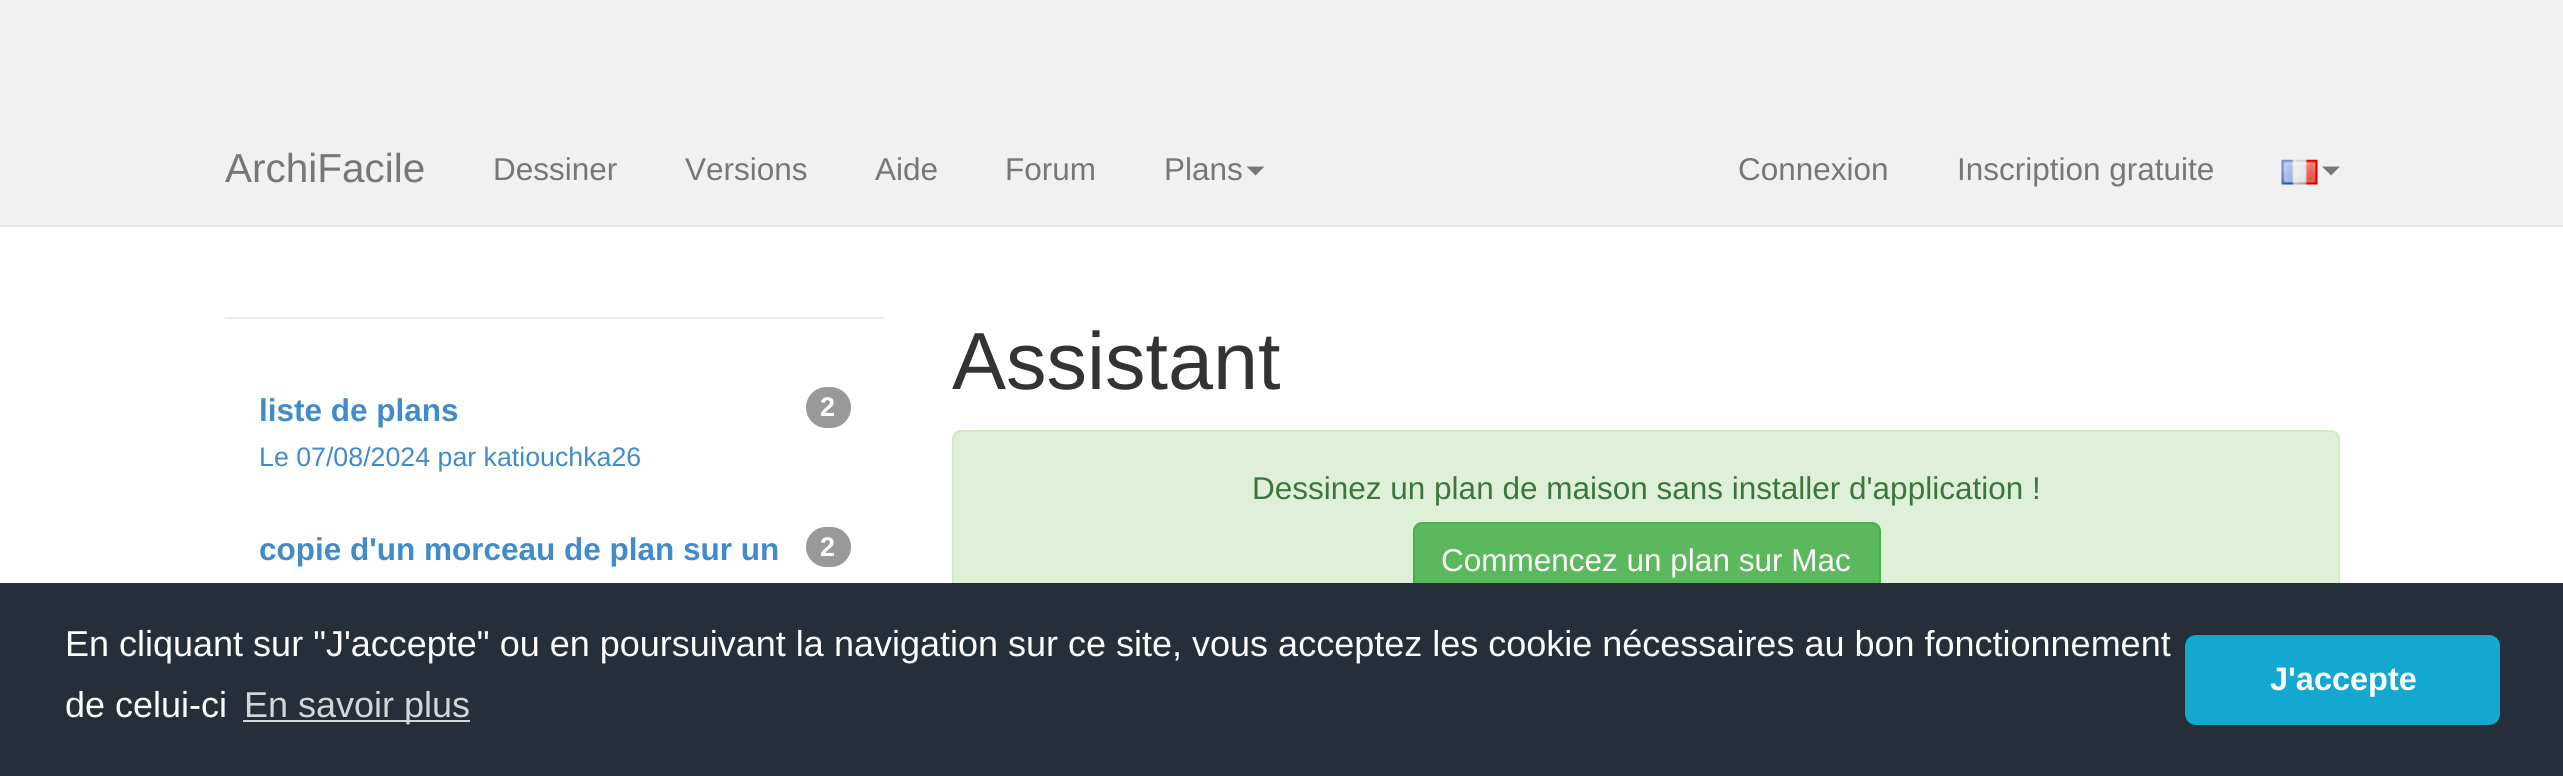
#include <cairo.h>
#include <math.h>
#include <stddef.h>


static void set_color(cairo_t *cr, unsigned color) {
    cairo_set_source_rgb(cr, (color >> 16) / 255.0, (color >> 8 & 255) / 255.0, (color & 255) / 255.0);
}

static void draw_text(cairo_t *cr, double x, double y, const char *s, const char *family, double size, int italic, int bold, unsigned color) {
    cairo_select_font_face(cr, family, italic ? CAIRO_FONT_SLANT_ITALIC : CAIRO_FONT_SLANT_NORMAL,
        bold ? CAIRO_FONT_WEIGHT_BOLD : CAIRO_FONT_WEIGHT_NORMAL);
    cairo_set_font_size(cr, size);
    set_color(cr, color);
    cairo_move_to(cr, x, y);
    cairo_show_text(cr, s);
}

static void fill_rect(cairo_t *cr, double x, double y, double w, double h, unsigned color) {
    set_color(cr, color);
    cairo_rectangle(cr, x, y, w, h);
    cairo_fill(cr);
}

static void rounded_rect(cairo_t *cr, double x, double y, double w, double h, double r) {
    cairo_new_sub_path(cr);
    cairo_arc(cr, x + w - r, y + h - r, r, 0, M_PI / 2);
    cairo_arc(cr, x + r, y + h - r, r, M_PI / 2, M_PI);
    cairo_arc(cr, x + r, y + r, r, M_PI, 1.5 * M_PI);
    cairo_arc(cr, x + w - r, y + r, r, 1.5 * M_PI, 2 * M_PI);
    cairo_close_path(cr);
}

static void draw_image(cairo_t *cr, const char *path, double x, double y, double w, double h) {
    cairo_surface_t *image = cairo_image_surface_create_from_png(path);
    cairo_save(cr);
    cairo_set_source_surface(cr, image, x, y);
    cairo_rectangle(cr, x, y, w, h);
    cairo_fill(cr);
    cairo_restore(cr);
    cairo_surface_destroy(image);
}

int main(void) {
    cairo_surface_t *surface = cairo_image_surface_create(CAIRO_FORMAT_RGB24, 2563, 776);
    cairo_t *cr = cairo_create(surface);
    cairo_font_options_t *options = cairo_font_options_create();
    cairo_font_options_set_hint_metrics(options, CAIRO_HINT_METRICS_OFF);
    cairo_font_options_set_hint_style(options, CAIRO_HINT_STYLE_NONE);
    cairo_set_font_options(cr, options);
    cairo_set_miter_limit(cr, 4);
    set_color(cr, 0xFFFFFF);
    cairo_paint(cr);
    fill_rect(cr, 0, 0, 2563, 225, 0xF1F1F1);
    fill_rect(cr, 0, 225, 2563, 2, 0xE7E7E7);
    draw_text(cr, 225, 182, "ArchiFacile", "Liberation Sans", 40.5, 0, 0, 0x777777);
    draw_text(cr, 493, 180, "Dessiner", "Liberation Sans", 31.5, 0, 0, 0x777777);
    draw_text(cr, 685, 180, "Versions", "Liberation Sans", 31.5, 0, 0, 0x777777);
    draw_text(cr, 875, 180, "Aide", "Liberation Sans", 31.5, 0, 0, 0x777777);
    draw_text(cr, 1005, 180, "Forum", "Liberation Sans", 31.5, 0, 0, 0x777777);
    draw_text(cr, 1164, 180, "Plans", "Liberation Sans", 31.5, 0, 0, 0x777777);
    cairo_new_path(cr);
    cairo_move_to(cr, 1246.5, 166.5);
    cairo_line_to(cr, 1264.5, 166.5);
    cairo_line_to(cr, 1255.5, 175.5);
    cairo_close_path(cr);
    cairo_fill(cr);
    draw_text(cr, 1738, 180, "Connexion", "Liberation Sans", 31.5, 0, 0, 0x777777);
    draw_text(cr, 1957, 180, "Inscription gratuite", "Liberation Sans", 31.5, 0, 0, 0x777777);
    draw_image(cr, "assets/img1.png", 2281, 159, 37, 26);
    cairo_new_path(cr);
    cairo_move_to(cr, 2322, 166.5);
    cairo_line_to(cr, 2340, 166.5);
    cairo_line_to(cr, 2331, 175.5);
    cairo_close_path(cr);
    cairo_fill(cr);
    fill_rect(cr, 225, 317, 659, 2, 0xEEEEEE);
    draw_text(cr, 259, 421, "liste de plans", "Liberation Sans", 31.5, 0, 1, 0x428BCA);
    set_color(cr, 0x999999);
    rounded_rect(cr, 806, 387, 45, 41, 20.5);
    cairo_fill(cr);
    draw_text(cr, 820, 416, "2", "Liberation Sans", 27, 0, 1, 0xFFFFFF);
    draw_text(cr, 259, 466, "Le 07/08/2024 par katiouchka26", "Liberation Sans", 26.75, 0, 0, 0x428BCA);
    draw_text(cr, 259, 560, "copie d'un morceau de plan sur un", "Liberation Sans", 31.5, 0, 1, 0x428BCA);
    set_color(cr, 0x999999);
    rounded_rect(cr, 806, 527, 45, 40, 20);
    cairo_fill(cr);
    draw_text(cr, 820, 556, "2", "Liberation Sans", 27, 0, 1, 0xFFFFFF);
    draw_text(cr, 952, 389, "Assistant", "Liberation Sans", 81, 0, 0, 0x333333);
    set_color(cr, 0xDFF0D8);
    rounded_rect(cr, 953, 431, 1386, 203, 8);
    cairo_fill_preserve(cr);
    set_color(cr, 0xD6E9C6);
    cairo_stroke(cr);
    draw_text(cr, 1252, 499, "Dessinez un plan de maison sans installer d'application !", "Liberation Sans", 31.5, 0, 0, 0x3C763D);
    set_color(cr, 0x5CB85C);
    rounded_rect(cr, 1414, 523, 466, 75, 8);
    cairo_fill_preserve(cr);
    set_color(cr, 0x4CAE4C);
    cairo_stroke(cr);
    draw_text(cr, 1441, 571, "Commencez un plan sur Mac", "Liberation Sans", 31.5, 0, 0, 0xFFFFFF);
    fill_rect(cr, 0, 583, 2563, 193, 0x252E39);
    draw_text(cr, 65, 656, "En cliquant sur \"J'accepte\" ou en poursuivant la navigation sur ce site, vous acceptez les cookie nécessaires au bon fonctionnement", "Liberation Sans", 36, 0, 0, 0xFFFFFF);
    draw_text(cr, 65, 717, "de celui-ci", "Liberation Sans", 36, 0, 0, 0xFFFFFF);
    fill_rect(cr, 243, 720, 227, 2, 0xD3D5D7);
    draw_text(cr, 244, 717, "En savoir plus", "Liberation Sans", 36, 0, 0, 0xD3D5D7);
    set_color(cr, 0x14A7D0);
    rounded_rect(cr, 2185, 635, 315, 90, 11);
    cairo_fill(cr);
    draw_text(cr, 2270, 690, "J'accepte", "Liberation Sans", 32.5, 0, 1, 0xFFFFFF);
    cairo_surface_write_to_png(surface, "output.png");
    cairo_font_options_destroy(options);
    cairo_destroy(cr);
    cairo_surface_destroy(surface);
    return 0;
}
